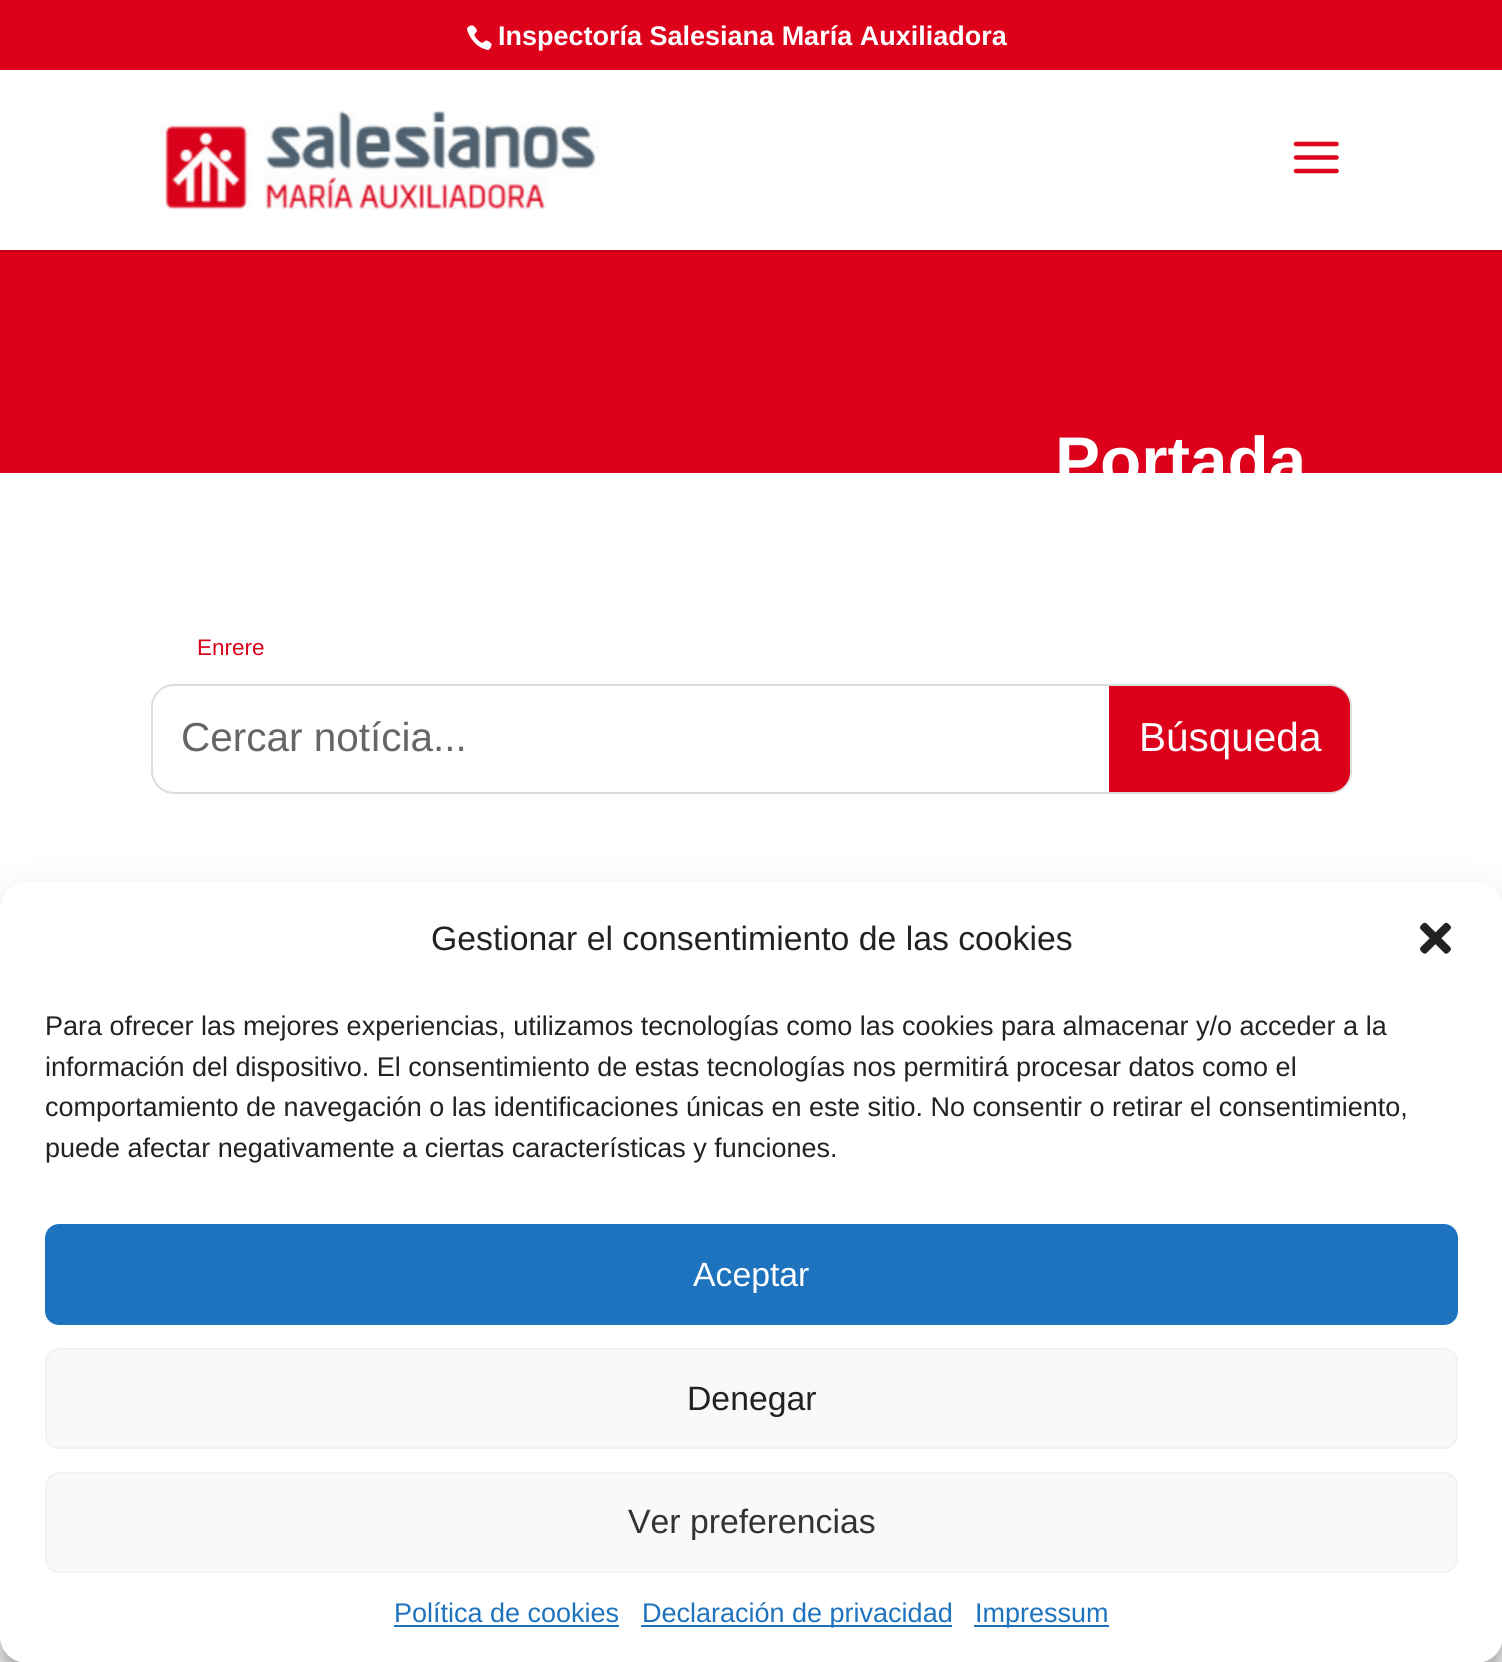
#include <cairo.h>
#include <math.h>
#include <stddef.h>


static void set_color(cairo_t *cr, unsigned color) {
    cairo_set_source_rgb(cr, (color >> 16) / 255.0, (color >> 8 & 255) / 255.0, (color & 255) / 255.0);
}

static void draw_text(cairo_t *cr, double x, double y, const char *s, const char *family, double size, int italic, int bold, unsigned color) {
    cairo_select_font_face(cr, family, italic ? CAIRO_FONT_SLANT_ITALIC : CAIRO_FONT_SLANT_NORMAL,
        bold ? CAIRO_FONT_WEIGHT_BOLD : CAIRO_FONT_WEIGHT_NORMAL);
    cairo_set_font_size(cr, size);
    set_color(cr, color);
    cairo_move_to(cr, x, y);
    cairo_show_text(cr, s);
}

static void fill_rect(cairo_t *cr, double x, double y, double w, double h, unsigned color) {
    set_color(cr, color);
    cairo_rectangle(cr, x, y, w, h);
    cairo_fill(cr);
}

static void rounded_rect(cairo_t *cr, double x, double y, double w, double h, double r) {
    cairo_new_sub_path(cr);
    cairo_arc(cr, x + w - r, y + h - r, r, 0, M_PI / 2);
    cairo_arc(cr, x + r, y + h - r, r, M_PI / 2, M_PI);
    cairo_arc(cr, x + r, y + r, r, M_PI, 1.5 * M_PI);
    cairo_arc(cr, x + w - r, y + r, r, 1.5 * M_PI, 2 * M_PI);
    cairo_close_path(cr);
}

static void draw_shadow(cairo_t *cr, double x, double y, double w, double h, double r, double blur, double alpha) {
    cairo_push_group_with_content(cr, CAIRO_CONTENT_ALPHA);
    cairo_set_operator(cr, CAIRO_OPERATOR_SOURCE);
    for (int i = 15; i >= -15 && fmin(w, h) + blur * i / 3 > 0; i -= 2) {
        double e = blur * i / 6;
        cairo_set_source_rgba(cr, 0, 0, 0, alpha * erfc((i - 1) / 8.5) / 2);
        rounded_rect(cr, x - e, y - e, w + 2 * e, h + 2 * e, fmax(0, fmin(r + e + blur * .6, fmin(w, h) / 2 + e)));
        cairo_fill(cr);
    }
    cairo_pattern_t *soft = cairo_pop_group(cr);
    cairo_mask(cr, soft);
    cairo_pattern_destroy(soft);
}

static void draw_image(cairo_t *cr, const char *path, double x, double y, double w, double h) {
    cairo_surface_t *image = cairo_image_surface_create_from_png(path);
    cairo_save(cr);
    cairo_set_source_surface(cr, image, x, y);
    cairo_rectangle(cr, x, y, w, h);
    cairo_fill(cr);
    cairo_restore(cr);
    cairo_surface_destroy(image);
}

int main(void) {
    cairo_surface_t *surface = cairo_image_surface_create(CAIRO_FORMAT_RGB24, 1502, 1662);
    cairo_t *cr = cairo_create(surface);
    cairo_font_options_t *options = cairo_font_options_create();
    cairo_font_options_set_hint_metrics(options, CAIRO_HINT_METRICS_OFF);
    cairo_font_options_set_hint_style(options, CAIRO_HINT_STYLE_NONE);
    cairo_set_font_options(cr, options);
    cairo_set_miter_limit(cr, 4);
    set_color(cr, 0xFFFFFF);
    cairo_paint(cr);
    fill_rect(cr, 0, 0, 1502, 70, 0xDC001B);
    draw_image(cr, "assets/img1.png", 466, 25, 26, 26);
    draw_text(cr, 498, 45, "Inspectoría Salesiana María Auxiliadora", "Liberation Sans", 27, 0, 1, 0xFFFFFF);
    fill_rect(cr, 0, 250, 1502, 2, 0xC60018);
    draw_image(cr, "assets/img2.png", 160, 110, 439, 100);
    draw_image(cr, "assets/img3.png", 1293, 141, 46, 33);
    fill_rect(cr, 0, 252, 1502, 221, 0xDC001B);
    draw_text(cr, 1055, 484, "Portada", "Liberation Sans", 67.5, 0, 1, 0xFFFFFF);
    draw_text(cr, 197, 655, "Enrere", "Liberation Sans", 22.5, 0, 0, 0xDC001B);
    rounded_rect(cr, 152, 685, 1199, 108, 22);
    set_color(cr, 0xDDDDDD);
    cairo_stroke(cr);
    draw_text(cr, 181, 751, "Cercar notícia...", "Liberation Sans", 40.5, 0, 0, 0x666666);
    set_color(cr, 0xDC001B);
    cairo_new_path(cr);
    cairo_move_to(cr, 1109, 686);
    cairo_line_to(cr, 1330, 686);
    cairo_curve_to(cr, 1341, 686, 1350, 695, 1350, 706);
    cairo_line_to(cr, 1350, 772);
    cairo_curve_to(cr, 1350, 783, 1341, 792, 1330, 792);
    cairo_line_to(cr, 1109, 792);
    cairo_close_path(cr);
    cairo_fill(cr);
    draw_text(cr, 1139, 751, "Búsqueda", "Liberation Sans", 40.5, 0, 0, 0xFFFFFF);
    set_color(cr, 0x000000);
    draw_shadow(cr, 0, 896, 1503, 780, 27, 7, 0.23);
    draw_shadow(cr, 0, 905, 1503, 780, 27, 22.5, 0.19);
    set_color(cr, 0xFFFFFF);
    rounded_rect(cr, 0, 882, 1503, 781, 27);
    cairo_fill(cr);
    draw_text(cr, 431, 950, "Gestionar el consentimiento de las cookies", "Liberation Sans", 33.75, 0, 0, 0x222222);
    draw_image(cr, "assets/img4.png", 1420, 922, 31, 32);
    draw_text(cr, 45, 1035, "Para ofrecer las mejores experiencias, utilizamos tecnologías como las cookies para almacenar y/o acceder a la", "Liberation Sans", 27, 0, 0, 0x222222);
    draw_text(cr, 45, 1076, "información del dispositivo. El consentimiento de estas tecnologías nos permitirá procesar datos como el", "Liberation Sans", 27, 0, 0, 0x222222);
    draw_text(cr, 45, 1116, "comportamiento de navegación o las identificaciones únicas en este sitio. No consentir o retirar el consentimiento,", "Liberation Sans", 27, 0, 0, 0x222222);
    draw_text(cr, 45, 1157, "puede afectar negativamente a ciertas características y funciones.", "Liberation Sans", 27, 0, 0, 0x222222);
    set_color(cr, 0x1E73BE);
    rounded_rect(cr, 46, 1225, 1411, 99, 13);
    cairo_fill_preserve(cr);
    cairo_stroke(cr);
    draw_text(cr, 693, 1286, "Aceptar", "Liberation Sans", 33.75, 0, 0, 0xFFFFFF);
    set_color(cr, 0xF9F9F9);
    rounded_rect(cr, 46, 1349, 1411, 99, 13);
    cairo_fill_preserve(cr);
    set_color(cr, 0xF2F2F2);
    cairo_stroke(cr);
    draw_text(cr, 687, 1410, "Denegar", "Liberation Sans", 33.75, 0, 0, 0x222222);
    set_color(cr, 0xF9F9F9);
    rounded_rect(cr, 46, 1473, 1411, 99, 13);
    cairo_fill_preserve(cr);
    set_color(cr, 0xF2F2F2);
    cairo_stroke(cr);
    draw_text(cr, 628, 1533, "Ver preferencias", "Liberation Sans", 33.75, 0, 0, 0x333333);
    draw_text(cr, 394, 1622, "Política de cookies", "Liberation Sans", 27, 0, 0, 0x1E73BE);
    fill_rect(cr, 394, 1625, 225, 2, 0x1E73BE);
    fill_rect(cr, 641, 1625, 311, 2, 0x1E73BE);
    draw_text(cr, 642, 1622, "Declaración de privacidad", "Liberation Sans", 27, 0, 0, 0x1E73BE);
    fill_rect(cr, 974, 1625, 135, 2, 0x1E73BE);
    draw_text(cr, 975, 1622, "Impressum", "Liberation Sans", 27, 0, 0, 0x1E73BE);
    cairo_surface_write_to_png(surface, "output.png");
    cairo_font_options_destroy(options);
    cairo_destroy(cr);
    cairo_surface_destroy(surface);
    return 0;
}
